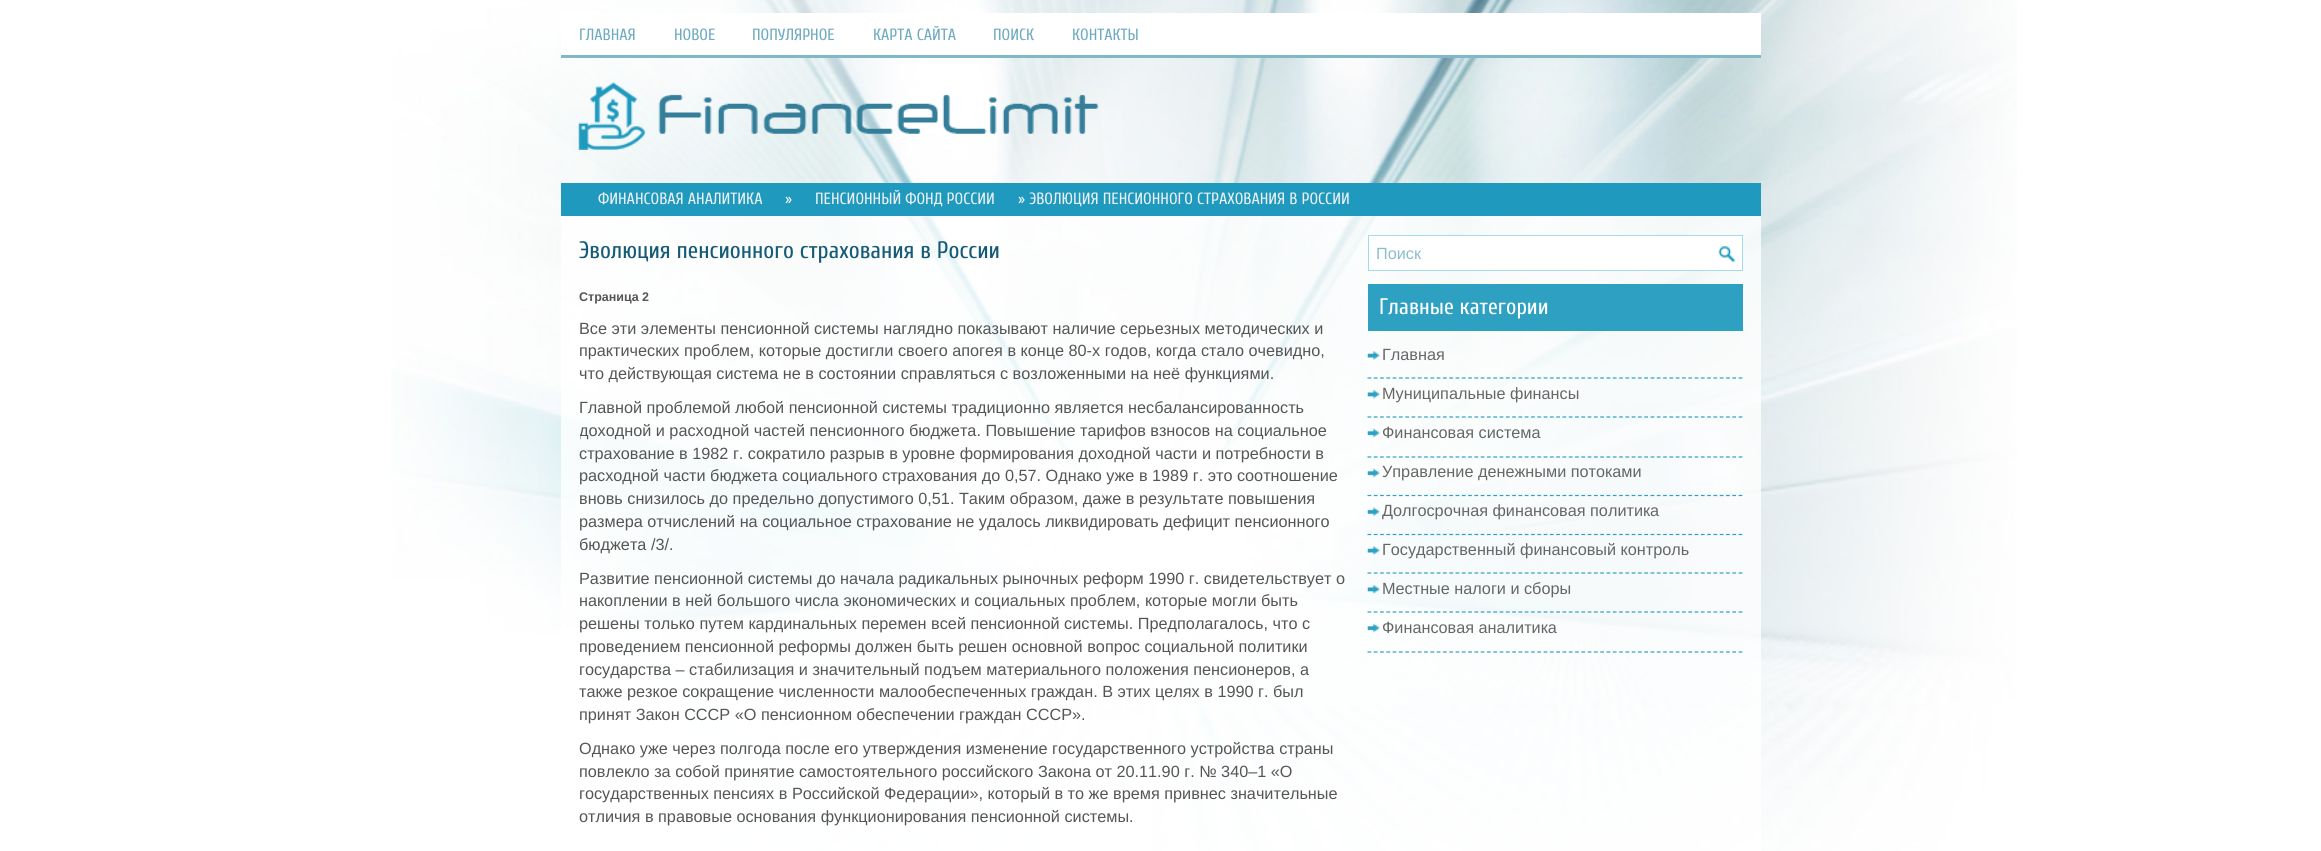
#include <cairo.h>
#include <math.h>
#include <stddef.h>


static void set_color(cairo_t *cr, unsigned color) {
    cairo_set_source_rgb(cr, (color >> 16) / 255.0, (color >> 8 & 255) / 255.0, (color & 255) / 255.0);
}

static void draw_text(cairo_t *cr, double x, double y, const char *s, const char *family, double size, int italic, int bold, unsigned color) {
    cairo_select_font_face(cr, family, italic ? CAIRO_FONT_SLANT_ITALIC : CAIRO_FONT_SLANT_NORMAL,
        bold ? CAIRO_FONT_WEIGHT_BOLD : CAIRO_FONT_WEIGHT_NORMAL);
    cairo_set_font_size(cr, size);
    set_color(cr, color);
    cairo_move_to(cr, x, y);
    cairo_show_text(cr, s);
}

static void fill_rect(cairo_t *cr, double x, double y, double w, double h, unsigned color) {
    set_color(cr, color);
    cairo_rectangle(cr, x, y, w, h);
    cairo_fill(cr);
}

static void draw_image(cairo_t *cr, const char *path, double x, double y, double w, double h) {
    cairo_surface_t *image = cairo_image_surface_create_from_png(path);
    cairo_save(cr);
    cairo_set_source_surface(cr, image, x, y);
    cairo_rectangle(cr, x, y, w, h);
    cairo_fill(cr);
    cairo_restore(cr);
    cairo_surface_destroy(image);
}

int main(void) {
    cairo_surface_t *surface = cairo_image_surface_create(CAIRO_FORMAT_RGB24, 2321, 851);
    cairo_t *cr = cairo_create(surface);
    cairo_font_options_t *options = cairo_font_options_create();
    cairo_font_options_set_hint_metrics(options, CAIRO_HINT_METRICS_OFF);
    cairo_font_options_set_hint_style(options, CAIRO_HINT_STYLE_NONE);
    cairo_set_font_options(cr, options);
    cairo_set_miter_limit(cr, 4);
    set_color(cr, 0xFFFFFF);
    cairo_paint(cr);
    draw_image(cr, "assets/img1.png", 391, 0, 1626, 851);
    fill_rect(cr, 561, 13, 1200, 42, 0xFFFFFF);
    fill_rect(cr, 561, 55, 1200, 3, 0x80B8C9);
    draw_text(cr, 579, 40, "ГЛАВНАЯ", "Cuprum", 16.25, 0, 0, 0x6EAAC0);
    draw_text(cr, 674, 40, "НОВОЕ", "Cuprum", 16.25, 0, 0, 0x6EAAC0);
    draw_text(cr, 752, 40, "ПОПУЛЯРНОЕ", "Cuprum", 16.25, 0, 0, 0x6EAAC0);
    draw_text(cr, 873, 40, "КАРТА САЙТА", "Cuprum", 16.25, 0, 0, 0x6EAAC0);
    draw_text(cr, 993, 40, "ПОИСК", "Cuprum", 16.25, 0, 0, 0x6EAAC0);
    draw_text(cr, 1072, 40, "КОНТАКТЫ", "Cuprum", 16.25, 0, 0, 0x6EAAC0);
    draw_image(cr, "assets/img2.png", 578, 82, 521, 68);
    fill_rect(cr, 561, 183, 1200, 33, 0x1F9ABE);
    draw_text(cr, 598, 204, "ФИНАНСОВАЯ АНАЛИТИКА", "Cuprum", 16.25, 0, 0, 0xEDF1F4);
    draw_text(cr, 785, 204, "»", "Cuprum", 16.25, 0, 0, 0xEDF1F4);
    draw_text(cr, 815, 204, "ПЕНСИОННЫЙ ФОНД РОССИИ", "Cuprum", 16.25, 0, 0, 0xEDF1F4);
    draw_text(cr, 1018, 204, "» ЭВОЛЮЦИЯ ПЕНСИОННОГО СТРАХОВАНИЯ В РОССИИ", "Cuprum", 16.25, 0, 0, 0xEDF1F4);
    cairo_set_source_rgba(cr, 1, 1, 1, 0.8);
    cairo_rectangle(cr, 561, 216, 1200, 635);
    cairo_fill(cr);
    draw_text(cr, 579, 258, "Эволюция пенсионного страхования в России", "Cuprum", 23.75, 0, 0, 0x155B75);
    draw_text(cr, 579, 301, "Страница 2", "Liberation Sans", 12.5, 0, 1, 0x555555);
    draw_text(cr, 579, 334, "Все эти элементы пенсионной системы наглядно показывают наличие серьезных методических и", "Liberation Sans", 16.25, 0, 0, 0x555555);
    draw_text(cr, 579, 356, "практических проблем, которые достигли своего апогея в конце 80-х годов, когда стало очевидно,", "Liberation Sans", 16.25, 0, 0, 0x555555);
    draw_text(cr, 579, 379, "что действующая система не в состоянии справляться с возложенными на неё функциями.", "Liberation Sans", 16.25, 0, 0, 0x555555);
    draw_text(cr, 579, 413, "Главной проблемой любой пенсионной системы традиционно является несбалансированность", "Liberation Sans", 16.25, 0, 0, 0x555555);
    cairo_save(cr);
    cairo_rectangle(cr, 580, 235, 769, 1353);
    cairo_clip(cr);
    draw_text(cr, 579, 436, "доходной и расходной частей пенсионного бюджета. Повышение тарифов взносов на социальное", "Liberation Sans", 16.25, 0, 0, 0x555555);
    cairo_restore(cr);
    draw_text(cr, 579, 459, "страхование в 1982 г. сократило разрыв в уровне формирования доходной части и потребности в", "Liberation Sans", 16.25, 0, 0, 0x555555);
    draw_text(cr, 579, 481, "расходной части бюджета социального страхования до 0,57. Однако уже в 1989 г. это соотношение", "Liberation Sans", 16.25, 0, 0, 0x555555);
    draw_text(cr, 579, 504, "вновь снизилось до предельно допустимого 0,51. Таким образом, даже в результате повышения", "Liberation Sans", 16.25, 0, 0, 0x555555);
    draw_text(cr, 579, 527, "размера отчислений на социальное страхование не удалось ликвидировать дефицит пенсионного", "Liberation Sans", 16.25, 0, 0, 0x555555);
    draw_text(cr, 579, 550, "бюджета /3/.", "Liberation Sans", 16.25, 0, 0, 0x555555);
    draw_text(cr, 579, 584, "Развитие пенсионной системы до начала радикальных рыночных реформ 1990 г. свидетельствует о", "Liberation Sans", 16.25, 0, 0, 0x555555);
    draw_text(cr, 579, 606, "накоплении в ней большого числа экономических и социальных проблем, которые могли быть", "Liberation Sans", 16.25, 0, 0, 0x555555);
    draw_text(cr, 579, 629, "решены только путем кардинальных перемен всей пенсионной системы. Предполагалось, что с", "Liberation Sans", 16.25, 0, 0, 0x555555);
    draw_text(cr, 579, 652, "проведением пенсионной реформы должен быть решен основной вопрос социальной политики", "Liberation Sans", 16.25, 0, 0, 0x555555);
    draw_text(cr, 579, 675, "государства – стабилизация и значительный подъем материального положения пенсионеров, а", "Liberation Sans", 16.25, 0, 0, 0x555555);
    draw_text(cr, 579, 697, "также резкое сокращение численности малообеспеченных граждан. В этих целях в 1990 г. был", "Liberation Sans", 16.25, 0, 0, 0x555555);
    draw_text(cr, 579, 720, "принят Закон СССР «О пенсионном обеспечении граждан СССР».", "Liberation Sans", 16.25, 0, 0, 0x555555);
    draw_text(cr, 579, 754, "Однако уже через полгода после его утверждения изменение государственного устройства страны", "Liberation Sans", 16.25, 0, 0, 0x555555);
    draw_text(cr, 579, 777, "повлекло за собой принятие самостоятельного российского Закона от 20.11.90 г. № 340–1 «О", "Liberation Sans", 16.25, 0, 0, 0x555555);
    draw_text(cr, 579, 799, "государственных пенсиях в Российской Федерации», который в то же время привнес значительные", "Liberation Sans", 16.25, 0, 0, 0x555555);
    draw_text(cr, 579, 822, "отличия в правовые основания функционирования пенсионной системы.", "Liberation Sans", 16.25, 0, 0, 0x555555);
    fill_rect(cr, 1369, 236, 373, 34, 0xFFFFFF);
    draw_image(cr, "assets/img3.png", 1718, 246, 18, 17);
    cairo_rectangle(cr, 1368.5, 235.5, 374, 35);
    set_color(cr, 0xA1DBEC);
    cairo_set_line_width(cr, 1);
    cairo_stroke(cr);
    draw_text(cr, 1376, 259, "Поиск", "Liberation Sans", 16.25, 0, 0, 0x8DBDCB);
    fill_rect(cr, 1368, 284, 375, 47, 0x2EA1C2);
    draw_text(cr, 1379, 314, "Главные категории", "Cuprum", 22.5, 0, 0, 0xFFFFFF);
    draw_image(cr, "assets/img4.png", 1367, 351, 13, 9);
    cairo_new_path(cr);
    cairo_move_to(cr, 1367.5, 378);
    cairo_line_to(cr, 1742.5, 378);
    set_color(cr, 0x2EA1C2);
    cairo_set_line_width(cr, 1.2);
    cairo_set_dash(cr, (double[]){3.75, 2.54}, 2, 0);
    cairo_stroke(cr);
    draw_text(cr, 1382, 360, "Главная", "Liberation Sans", 16.25, 0, 0, 0x666666);
    draw_image(cr, "assets/img5.png", 1367, 390, 13, 9);
    cairo_new_path(cr);
    cairo_move_to(cr, 1367.5, 417);
    cairo_line_to(cr, 1742.5, 417);
    set_color(cr, 0x2EA1C2);
    cairo_stroke(cr);
    draw_text(cr, 1382, 399, "Муниципальные финансы", "Liberation Sans", 16.25, 0, 0, 0x666666);
    draw_image(cr, "assets/img6.png", 1367, 428, 13, 10);
    cairo_new_path(cr);
    cairo_move_to(cr, 1367.5, 457);
    cairo_line_to(cr, 1742.5, 457);
    set_color(cr, 0x2EA1C2);
    cairo_stroke(cr);
    draw_text(cr, 1382, 438, "Финансовая система", "Liberation Sans", 16.25, 0, 0, 0x666666);
    draw_image(cr, "assets/img7.png", 1367, 468, 13, 10);
    cairo_new_path(cr);
    cairo_move_to(cr, 1367.5, 495.5);
    cairo_line_to(cr, 1742.5, 495.5);
    set_color(cr, 0x2EA1C2);
    cairo_stroke(cr);
    draw_text(cr, 1382, 477, "Управление денежными потоками", "Liberation Sans", 16.25, 0, 0, 0x666666);
    draw_image(cr, "assets/img8.png", 1367, 507, 13, 10);
    cairo_new_path(cr);
    cairo_move_to(cr, 1367.5, 534.5);
    cairo_line_to(cr, 1742.5, 534.5);
    set_color(cr, 0x2EA1C2);
    cairo_stroke(cr);
    draw_text(cr, 1382, 516, "Долгосрочная финансовая политика", "Liberation Sans", 16.25, 0, 0, 0x666666);
    draw_image(cr, "assets/img9.png", 1367, 546, 13, 9);
    cairo_new_path(cr);
    cairo_move_to(cr, 1367.5, 573);
    cairo_line_to(cr, 1742.5, 573);
    set_color(cr, 0x2EA1C2);
    cairo_stroke(cr);
    draw_text(cr, 1382, 555, "Государственный финансовый контроль", "Liberation Sans", 16.25, 0, 0, 0x666666);
    draw_image(cr, "assets/img10.png", 1367, 585, 13, 9);
    cairo_new_path(cr);
    cairo_move_to(cr, 1367.5, 612);
    cairo_line_to(cr, 1742.5, 612);
    set_color(cr, 0x2EA1C2);
    cairo_stroke(cr);
    draw_text(cr, 1382, 594, "Местные налоги и сборы", "Liberation Sans", 16.25, 0, 0, 0x666666);
    draw_image(cr, "assets/img11.png", 1367, 623, 13, 10);
    cairo_new_path(cr);
    cairo_move_to(cr, 1367.5, 652);
    cairo_line_to(cr, 1742.5, 652);
    set_color(cr, 0x2EA1C2);
    cairo_stroke(cr);
    draw_text(cr, 1382, 633, "Финансовая аналитика", "Liberation Sans", 16.25, 0, 0, 0x666666);
    cairo_surface_write_to_png(surface, "output.png");
    cairo_font_options_destroy(options);
    cairo_destroy(cr);
    cairo_surface_destroy(surface);
    return 0;
}
